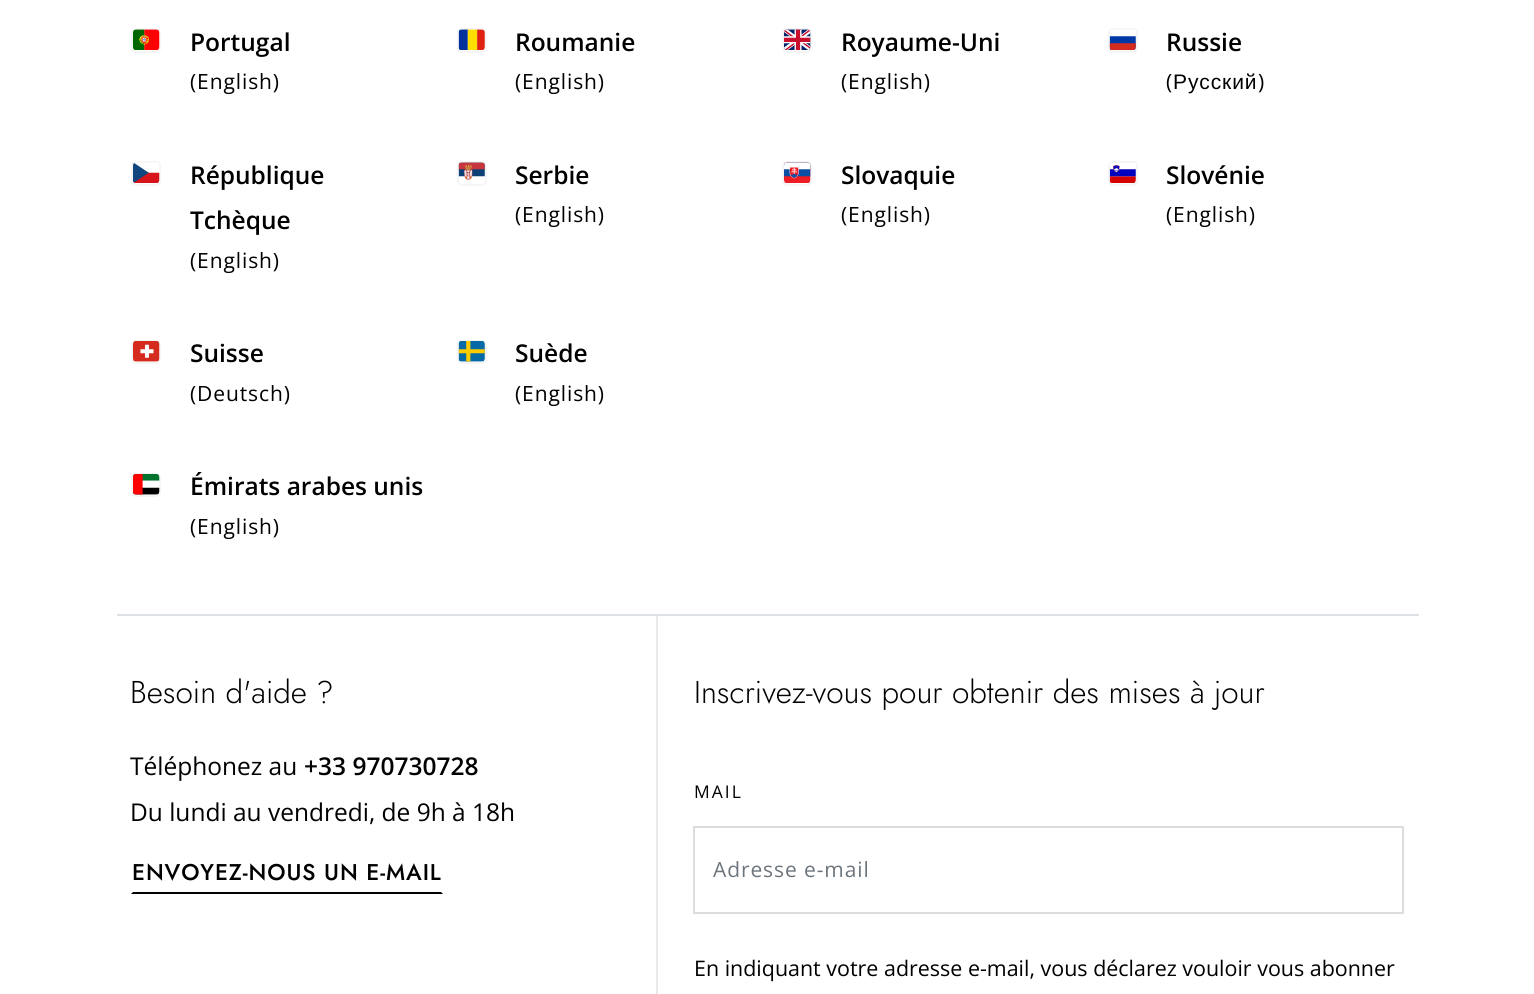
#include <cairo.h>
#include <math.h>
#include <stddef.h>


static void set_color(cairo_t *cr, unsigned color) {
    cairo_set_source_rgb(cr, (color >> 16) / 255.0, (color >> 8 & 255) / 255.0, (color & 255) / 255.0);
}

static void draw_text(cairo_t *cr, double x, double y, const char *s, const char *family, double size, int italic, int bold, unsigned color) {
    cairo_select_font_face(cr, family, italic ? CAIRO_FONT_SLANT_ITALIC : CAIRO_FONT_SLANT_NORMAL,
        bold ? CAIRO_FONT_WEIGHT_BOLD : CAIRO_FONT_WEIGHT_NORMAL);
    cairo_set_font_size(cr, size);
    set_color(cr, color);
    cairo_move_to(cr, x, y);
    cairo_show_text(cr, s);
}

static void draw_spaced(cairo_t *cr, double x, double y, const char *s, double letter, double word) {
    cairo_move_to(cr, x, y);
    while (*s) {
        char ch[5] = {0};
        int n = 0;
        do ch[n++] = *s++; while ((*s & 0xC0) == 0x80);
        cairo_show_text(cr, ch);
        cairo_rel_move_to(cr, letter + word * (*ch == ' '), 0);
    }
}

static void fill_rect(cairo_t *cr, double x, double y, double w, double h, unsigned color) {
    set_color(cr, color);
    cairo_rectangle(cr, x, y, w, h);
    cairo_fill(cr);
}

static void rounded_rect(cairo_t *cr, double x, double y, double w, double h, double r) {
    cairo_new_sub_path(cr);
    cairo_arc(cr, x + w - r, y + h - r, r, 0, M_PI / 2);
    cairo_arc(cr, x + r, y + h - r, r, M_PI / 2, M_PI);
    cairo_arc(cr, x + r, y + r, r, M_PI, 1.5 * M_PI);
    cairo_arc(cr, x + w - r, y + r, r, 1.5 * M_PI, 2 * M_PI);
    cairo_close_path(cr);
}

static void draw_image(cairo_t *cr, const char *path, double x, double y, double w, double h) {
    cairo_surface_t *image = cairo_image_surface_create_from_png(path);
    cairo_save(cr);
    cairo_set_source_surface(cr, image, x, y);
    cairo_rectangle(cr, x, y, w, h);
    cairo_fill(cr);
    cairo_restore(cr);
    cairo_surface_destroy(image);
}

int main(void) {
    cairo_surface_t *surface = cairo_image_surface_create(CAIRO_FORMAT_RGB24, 1534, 994);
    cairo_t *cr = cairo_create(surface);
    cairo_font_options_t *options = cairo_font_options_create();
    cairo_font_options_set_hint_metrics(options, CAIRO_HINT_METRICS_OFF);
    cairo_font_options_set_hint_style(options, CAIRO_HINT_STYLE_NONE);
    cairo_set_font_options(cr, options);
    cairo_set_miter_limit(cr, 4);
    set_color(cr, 0xFFFFFF);
    cairo_paint(cr);
    rounded_rect(cr, 132, 29, 28, 23, 4);
    set_color(cr, 0xF5F5F5);
    cairo_stroke(cr);
    draw_image(cr, "assets/img1.png", 133, 29, 27, 21);
    draw_text(cr, 190, 51, "Portugal", "Open Sans SemiBold", 24.5, 0, 0, 0x000000);
    cairo_select_font_face(cr, "Open Sans", CAIRO_FONT_SLANT_NORMAL, CAIRO_FONT_WEIGHT_NORMAL);
    cairo_set_font_size(cr, 21);
    draw_spaced(cr, 190, 89, "(English)", 0.9, 0);
    rounded_rect(cr, 458, 29, 28, 23, 4);
    set_color(cr, 0xF5F5F5);
    cairo_stroke(cr);
    draw_image(cr, "assets/img2.png", 458, 29, 27, 21);
    draw_text(cr, 515, 51, "Roumanie", "Open Sans SemiBold", 24.5, 0, 0, 0x000000);
    cairo_select_font_face(cr, "Open Sans", CAIRO_FONT_SLANT_NORMAL, CAIRO_FONT_WEIGHT_NORMAL);
    cairo_set_font_size(cr, 21);
    draw_spaced(cr, 515, 89, "(English)", 0.9, 0);
    rounded_rect(cr, 783, 29, 28, 23, 4);
    set_color(cr, 0xF5F5F5);
    cairo_stroke(cr);
    draw_image(cr, "assets/img3.png", 784, 29, 27, 22);
    draw_text(cr, 841, 51, "Royaume-Uni", "Open Sans SemiBold", 24.5, 0, 0, 0x000000);
    cairo_select_font_face(cr, "Open Sans", CAIRO_FONT_SLANT_NORMAL, CAIRO_FONT_WEIGHT_NORMAL);
    cairo_set_font_size(cr, 21);
    draw_spaced(cr, 841, 89, "(English)", 0.9, 0);
    rounded_rect(cr, 1109, 29, 28, 23, 4);
    set_color(cr, 0xF5F5F5);
    cairo_stroke(cr);
    draw_image(cr, "assets/img4.png", 1109, 29, 27, 22);
    draw_text(cr, 1166, 51, "Russie", "Open Sans SemiBold", 24.5, 0, 0, 0x000000);
    cairo_select_font_face(cr, "Open Sans", CAIRO_FONT_SLANT_NORMAL, CAIRO_FONT_WEIGHT_NORMAL);
    cairo_set_font_size(cr, 21);
    draw_spaced(cr, 1166, 89, "(", 0.9, 0);
    cairo_select_font_face(cr, "Liberation Sans", CAIRO_FONT_SLANT_NORMAL, CAIRO_FONT_WEIGHT_NORMAL);
    draw_spaced(cr, 1173, 89, "Русский", 0.9, 0);
    cairo_select_font_face(cr, "Open Sans", CAIRO_FONT_SLANT_NORMAL, CAIRO_FONT_WEIGHT_NORMAL);
    draw_spaced(cr, 1258, 89, ")", 0.9, 0);
    rounded_rect(cr, 132, 162, 28, 23, 4);
    set_color(cr, 0xF5F5F5);
    cairo_stroke(cr);
    draw_image(cr, "assets/img5.png", 133, 162, 27, 21);
    draw_text(cr, 190, 184, "République", "Open Sans SemiBold", 24.5, 0, 0, 0x000000);
    draw_text(cr, 190, 229, "Tchèque", "Open Sans SemiBold", 24.5, 0, 0, 0x000000);
    cairo_select_font_face(cr, "Open Sans", CAIRO_FONT_SLANT_NORMAL, CAIRO_FONT_WEIGHT_NORMAL);
    cairo_set_font_size(cr, 21);
    draw_spaced(cr, 190, 268, "(English)", 0.9, 0);
    rounded_rect(cr, 458, 162, 28, 23, 4);
    set_color(cr, 0xF5F5F5);
    cairo_stroke(cr);
    draw_image(cr, "assets/img6.png", 458, 162, 27, 18);
    draw_text(cr, 515, 184, "Serbie", "Open Sans SemiBold", 24.5, 0, 0, 0x000000);
    cairo_select_font_face(cr, "Open Sans", CAIRO_FONT_SLANT_NORMAL, CAIRO_FONT_WEIGHT_NORMAL);
    cairo_set_font_size(cr, 21);
    draw_spaced(cr, 515, 222, "(English)", 0.9, 0);
    rounded_rect(cr, 783, 162, 28, 23, 4);
    set_color(cr, 0xF5F5F5);
    cairo_stroke(cr);
    draw_image(cr, "assets/img7.png", 784, 162, 27, 21);
    draw_text(cr, 841, 184, "Slovaquie", "Open Sans SemiBold", 24.5, 0, 0, 0x000000);
    cairo_select_font_face(cr, "Open Sans", CAIRO_FONT_SLANT_NORMAL, CAIRO_FONT_WEIGHT_NORMAL);
    cairo_set_font_size(cr, 21);
    draw_spaced(cr, 841, 222, "(English)", 0.9, 0);
    rounded_rect(cr, 1109, 162, 28, 23, 4);
    set_color(cr, 0xF5F5F5);
    cairo_stroke(cr);
    draw_image(cr, "assets/img8.png", 1109, 163, 27, 20);
    draw_text(cr, 1166, 184, "Slovénie", "Open Sans SemiBold", 24.5, 0, 0, 0x000000);
    cairo_select_font_face(cr, "Open Sans", CAIRO_FONT_SLANT_NORMAL, CAIRO_FONT_WEIGHT_NORMAL);
    cairo_set_font_size(cr, 21);
    draw_spaced(cr, 1166, 222, "(English)", 0.9, 0);
    rounded_rect(cr, 132, 341, 28, 22, 4);
    set_color(cr, 0xF5F5F5);
    cairo_stroke(cr);
    draw_image(cr, "assets/img9.png", 133, 341, 27, 21);
    draw_text(cr, 190, 362, "Suisse", "Open Sans SemiBold", 24.5, 0, 0, 0x000000);
    cairo_select_font_face(cr, "Open Sans", CAIRO_FONT_SLANT_NORMAL, CAIRO_FONT_WEIGHT_NORMAL);
    cairo_set_font_size(cr, 21);
    draw_spaced(cr, 190, 401, "(Deutsch)", 0.9, 0);
    rounded_rect(cr, 458, 341, 28, 22, 4);
    set_color(cr, 0xF5F5F5);
    cairo_stroke(cr);
    draw_image(cr, "assets/img10.png", 458, 340, 27, 22);
    draw_text(cr, 515, 362, "Suède", "Open Sans SemiBold", 24.5, 0, 0, 0x000000);
    cairo_select_font_face(cr, "Open Sans", CAIRO_FONT_SLANT_NORMAL, CAIRO_FONT_WEIGHT_NORMAL);
    cairo_set_font_size(cr, 21);
    draw_spaced(cr, 515, 401, "(English)", 0.9, 0);
    rounded_rect(cr, 132, 474, 28, 22, 4);
    set_color(cr, 0xF5F5F5);
    cairo_stroke(cr);
    draw_image(cr, "assets/img11.png", 133, 473, 27, 22);
    draw_text(cr, 190, 495, "Émirats arabes unis", "Open Sans SemiBold", 24.5, 0, 0, 0x000000);
    cairo_select_font_face(cr, "Open Sans", CAIRO_FONT_SLANT_NORMAL, CAIRO_FONT_WEIGHT_NORMAL);
    cairo_set_font_size(cr, 21);
    draw_spaced(cr, 190, 534, "(English)", 0.9, 0);
    fill_rect(cr, 117, 614, 1302, 2, 0xDEE2E6);
    draw_text(cr, 130, 703, "Besoin d'aide ?", "Jost Light", 31.5, 0, 0, 0x000000);
    draw_text(cr, 130, 775, "Téléphonez au", "Open Sans", 24.5, 0, 0, 0x000000);
    draw_text(cr, 304, 775, "+33 970730728", "Open Sans SemiBold", 24.5, 0, 0, 0x000000);
    draw_text(cr, 130, 821, "Du lundi au vendredi, de 9h à 18h", "Open Sans", 24.5, 0, 0, 0x000000);
    cairo_new_path(cr);
    cairo_move_to(cr, 443, 894);
    cairo_line_to(cr, 131, 894);
    cairo_line_to(cr, 133, 892);
    cairo_line_to(cr, 441, 892);
    cairo_close_path(cr);
    cairo_fill(cr);
    cairo_select_font_face(cr, "Jost Medium", CAIRO_FONT_SLANT_NORMAL, CAIRO_FONT_WEIGHT_NORMAL);
    cairo_set_font_size(cr, 22.75);
    draw_spaced(cr, 132, 880, "ENVOYEZ-NOUS UN E-MAIL", 0.9, 0);
    fill_rect(cr, 656, 616, 2, 378, 0xE9E9E9);
    draw_text(cr, 694, 703, "Inscrivez-vous pour obtenir des mises à jour", "Jost Light", 31.5, 0, 0, 0x000000);
    cairo_select_font_face(cr, "Open Sans", CAIRO_FONT_SLANT_NORMAL, CAIRO_FONT_WEIGHT_NORMAL);
    cairo_set_font_size(cr, 17.5);
    draw_spaced(cr, 694, 798, "MAIL", 2, 0);
    cairo_rectangle(cr, 694, 827, 709, 86);
    set_color(cr, 0xDCDCDC);
    cairo_stroke(cr);
    cairo_set_font_size(cr, 21);
    set_color(cr, 0x6C757D);
    draw_spaced(cr, 713, 877, "Adresse e-mail", 0.9, 0);
    draw_text(cr, 694, 976, "En indiquant votre adresse e-mail, vous déclarez vouloir vous abonner", "Open Sans", 21.45, 0, 0, 0x000000);
    cairo_surface_write_to_png(surface, "output.png");
    cairo_font_options_destroy(options);
    cairo_destroy(cr);
    cairo_surface_destroy(surface);
    return 0;
}
